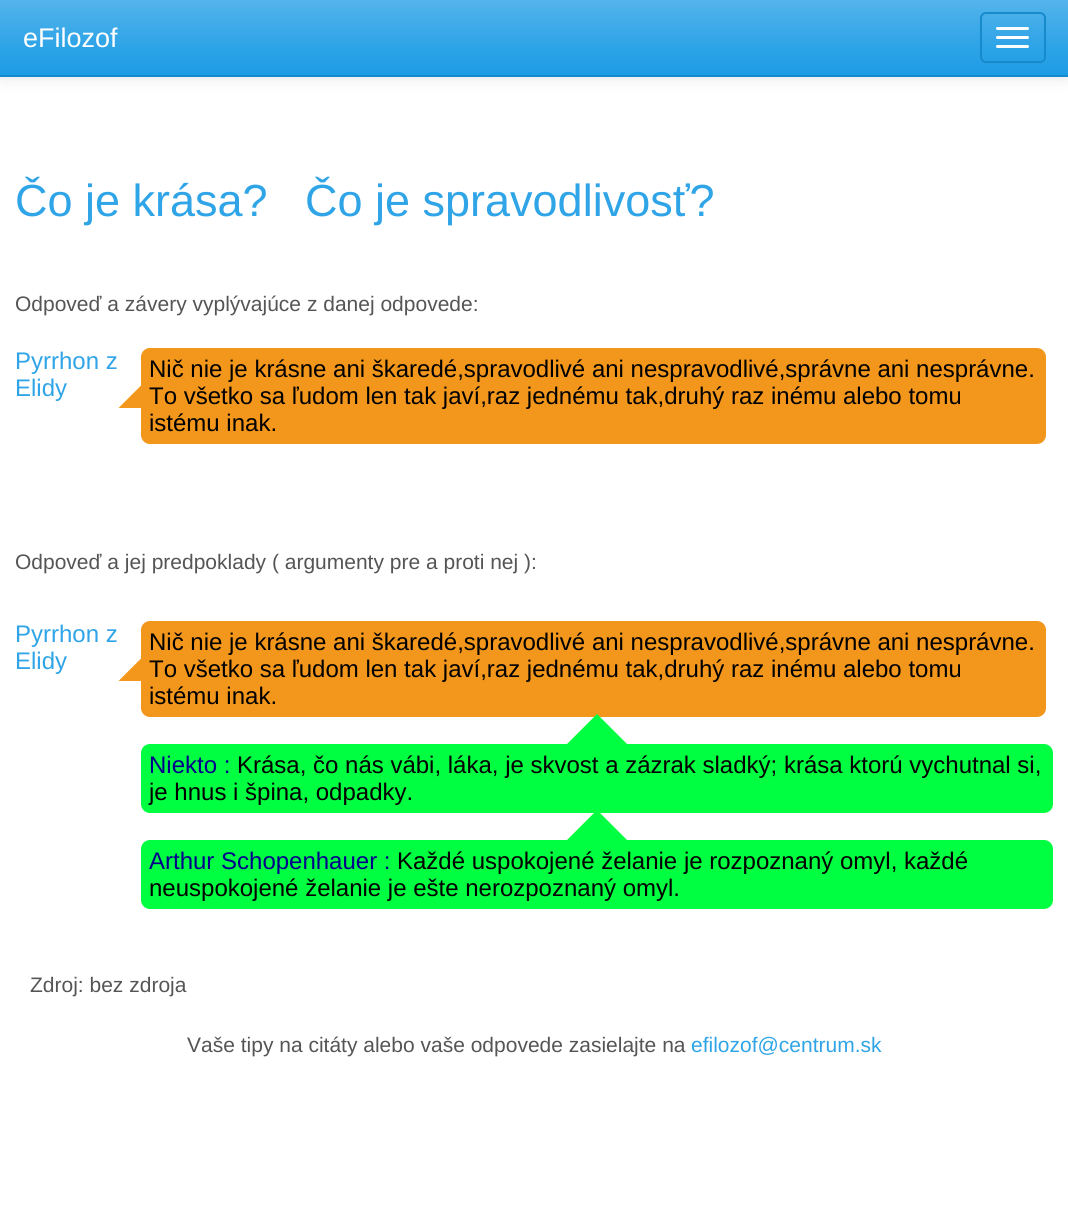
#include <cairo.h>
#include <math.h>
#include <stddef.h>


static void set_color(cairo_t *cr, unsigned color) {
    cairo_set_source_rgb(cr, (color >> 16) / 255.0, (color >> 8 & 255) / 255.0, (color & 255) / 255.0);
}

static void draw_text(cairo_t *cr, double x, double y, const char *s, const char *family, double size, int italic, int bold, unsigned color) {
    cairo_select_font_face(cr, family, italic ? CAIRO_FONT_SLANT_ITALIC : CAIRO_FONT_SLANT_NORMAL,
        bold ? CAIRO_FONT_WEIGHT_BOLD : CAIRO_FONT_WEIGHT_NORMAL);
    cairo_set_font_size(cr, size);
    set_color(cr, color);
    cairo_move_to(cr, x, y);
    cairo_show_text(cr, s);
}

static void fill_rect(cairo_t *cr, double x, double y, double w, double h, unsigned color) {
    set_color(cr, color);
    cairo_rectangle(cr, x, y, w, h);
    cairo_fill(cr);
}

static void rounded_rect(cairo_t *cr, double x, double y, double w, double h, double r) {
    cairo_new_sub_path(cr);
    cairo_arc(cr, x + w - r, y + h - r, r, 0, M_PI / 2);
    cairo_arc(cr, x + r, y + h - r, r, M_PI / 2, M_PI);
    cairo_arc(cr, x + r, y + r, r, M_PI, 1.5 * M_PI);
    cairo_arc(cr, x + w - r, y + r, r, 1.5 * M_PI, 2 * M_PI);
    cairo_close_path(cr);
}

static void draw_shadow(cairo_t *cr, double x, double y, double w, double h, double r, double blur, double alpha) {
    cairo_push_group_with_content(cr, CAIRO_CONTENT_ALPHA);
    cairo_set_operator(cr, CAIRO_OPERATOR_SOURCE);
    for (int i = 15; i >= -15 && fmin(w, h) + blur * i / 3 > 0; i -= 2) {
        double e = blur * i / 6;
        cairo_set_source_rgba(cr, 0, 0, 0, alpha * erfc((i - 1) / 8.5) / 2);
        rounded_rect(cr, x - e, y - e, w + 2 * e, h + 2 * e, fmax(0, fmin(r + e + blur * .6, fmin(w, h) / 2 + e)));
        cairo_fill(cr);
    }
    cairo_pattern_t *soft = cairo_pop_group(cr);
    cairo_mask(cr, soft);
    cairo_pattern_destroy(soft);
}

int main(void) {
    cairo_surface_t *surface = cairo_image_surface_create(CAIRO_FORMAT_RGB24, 1068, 1220);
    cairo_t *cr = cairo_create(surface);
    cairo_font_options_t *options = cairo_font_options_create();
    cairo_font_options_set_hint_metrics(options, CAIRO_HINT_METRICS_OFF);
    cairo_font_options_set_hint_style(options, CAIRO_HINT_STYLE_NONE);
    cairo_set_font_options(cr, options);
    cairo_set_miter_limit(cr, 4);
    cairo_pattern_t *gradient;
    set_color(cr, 0xFFFFFF);
    cairo_paint(cr);
    set_color(cr, 0x000000);
    draw_shadow(cr, 0, 2, 1068, 76, 0, 7.5, 0.1);
    gradient = cairo_pattern_create_linear(534, 0, 534, 75);
    cairo_pattern_add_color_stop_rgba(gradient, 0, 0.329, 0.706, 0.922, 1);
    cairo_pattern_add_color_stop_rgba(gradient, 0.6, 0.184, 0.643, 0.906, 1);
    cairo_pattern_add_color_stop_rgba(gradient, 1, 0.114, 0.612, 0.898, 1);
    cairo_set_source(cr, gradient);
    cairo_pattern_destroy(gradient);
    cairo_rectangle(cr, 0, 0, 1068, 75);
    cairo_fill(cr);
    fill_rect(cr, 0, 75, 1068, 2, 0x178ACC);
    draw_text(cr, 23, 47, "eFilozof", "Liberation Sans", 27, 0, 0, 0xFFFFFF);
    rounded_rect(cr, 981, 13, 64, 49, 5);
    set_color(cr, 0x178ACC);
    cairo_stroke(cr);
    set_color(cr, 0xFFFFFF);
    rounded_rect(cr, 996, 27, 33, 3, 1.5);
    cairo_fill(cr);
    rounded_rect(cr, 996, 36, 33, 3, 1.5);
    cairo_fill(cr);
    rounded_rect(cr, 996, 45, 33, 3, 1.5);
    cairo_fill(cr);
    draw_text(cr, 15, 216, "Čo je krása?", "Liberation Sans", 45, 0, 0, 0x2FA4E7);
    draw_text(cr, 305, 216, "Čo je spravodlivosť?", "Liberation Sans", 45, 0, 0, 0x2FA4E7);
    draw_text(cr, 15, 311, "Odpoveď a závery vyplývajúce z danej odpovede:", "Liberation Sans", 21, 0, 0, 0x555555);
    draw_text(cr, 15, 369, "Pyrrhon z", "Liberation Sans", 24, 0, 0, 0x2FA4E7);
    draw_text(cr, 15, 396, "Elidy", "Liberation Sans", 24, 0, 0, 0x2FA4E7);
    set_color(cr, 0xF3961C);
    rounded_rect(cr, 141, 348, 905, 96, 9);
    cairo_fill(cr);
    draw_text(cr, 149, 377, "Nič nie je krásne ani škaredé,spravodlivé ani nespravodlivé,správne ani nesprávne.", "Liberation Sans", 24, 0, 0, 0x000000);
    set_color(cr, 0xF3961C);
    cairo_new_path(cr);
    cairo_move_to(cr, 141, 385.5);
    cairo_line_to(cr, 141, 408);
    cairo_line_to(cr, 118.5, 408);
    cairo_close_path(cr);
    cairo_fill(cr);
    draw_text(cr, 149, 404, "To všetko sa ľudom len tak javí,raz jednému tak,druhý raz inému alebo tomu", "Liberation Sans", 24, 0, 0, 0x000000);
    draw_text(cr, 149, 431, "istému inak.", "Liberation Sans", 24, 0, 0, 0x000000);
    draw_text(cr, 15, 569, "Odpoveď a jej predpoklady ( argumenty pre a proti nej ):", "Liberation Sans", 21, 0, 0, 0x555555);
    draw_text(cr, 15, 642, "Pyrrhon z", "Liberation Sans", 24, 0, 0, 0x2FA4E7);
    draw_text(cr, 15, 669, "Elidy", "Liberation Sans", 24, 0, 0, 0x2FA4E7);
    set_color(cr, 0xF3961C);
    rounded_rect(cr, 141, 621, 905, 96, 9);
    cairo_fill(cr);
    draw_text(cr, 149, 650, "Nič nie je krásne ani škaredé,spravodlivé ani nespravodlivé,správne ani nesprávne.", "Liberation Sans", 24, 0, 0, 0x000000);
    set_color(cr, 0xF3961C);
    cairo_new_path(cr);
    cairo_move_to(cr, 141, 658.5);
    cairo_line_to(cr, 141, 681);
    cairo_line_to(cr, 118.5, 681);
    cairo_close_path(cr);
    cairo_fill(cr);
    draw_text(cr, 149, 677, "To všetko sa ľudom len tak javí,raz jednému tak,druhý raz inému alebo tomu", "Liberation Sans", 24, 0, 0, 0x000000);
    draw_text(cr, 149, 704, "istému inak.", "Liberation Sans", 24, 0, 0, 0x000000);
    set_color(cr, 0x00FF40);
    rounded_rect(cr, 141, 744, 912, 69, 9);
    cairo_fill(cr);
    cairo_new_path(cr);
    cairo_move_to(cr, 627, 744);
    cairo_line_to(cr, 567, 744);
    cairo_line_to(cr, 597, 714);
    cairo_close_path(cr);
    cairo_fill(cr);
    draw_text(cr, 149, 773, "Niekto :", "Liberation Sans", 24, 0, 0, 0x00008B);
    draw_text(cr, 237, 773, "Krása, čo nás vábi, láka, je skvost a zázrak sladký; krása ktorú vychutnal si,", "Liberation Sans", 24, 0, 0, 0x000000);
    draw_text(cr, 149, 800, "je hnus i špina, odpadky.", "Liberation Sans", 24, 0, 0, 0x000000);
    set_color(cr, 0x00FF40);
    rounded_rect(cr, 141, 840, 912, 69, 9);
    cairo_fill(cr);
    cairo_new_path(cr);
    cairo_move_to(cr, 627, 840);
    cairo_line_to(cr, 567, 840);
    cairo_line_to(cr, 597, 810);
    cairo_close_path(cr);
    cairo_fill(cr);
    draw_text(cr, 149, 869, "Arthur Schopenhauer :", "Liberation Sans", 24, 0, 0, 0x00008B);
    draw_text(cr, 397, 869, "Každé uspokojené želanie je rozpoznaný omyl, každé", "Liberation Sans", 24, 0, 0, 0x000000);
    draw_text(cr, 149, 896, "neuspokojené želanie je ešte nerozpoznaný omyl.", "Liberation Sans", 24, 0, 0, 0x000000);
    draw_text(cr, 30, 992, "Zdroj: bez zdroja", "Liberation Sans", 21, 0, 0, 0x555555);
    draw_text(cr, 187, 1052, "Vaše tipy na citáty alebo vaše odpovede zasielajte na", "Liberation Sans", 21, 0, 0, 0x555555);
    draw_text(cr, 691, 1052, "efilozof@centrum.sk", "Liberation Sans", 21, 0, 0, 0x2FA4E7);
    cairo_surface_write_to_png(surface, "output.png");
    cairo_font_options_destroy(options);
    cairo_destroy(cr);
    cairo_surface_destroy(surface);
    return 0;
}
